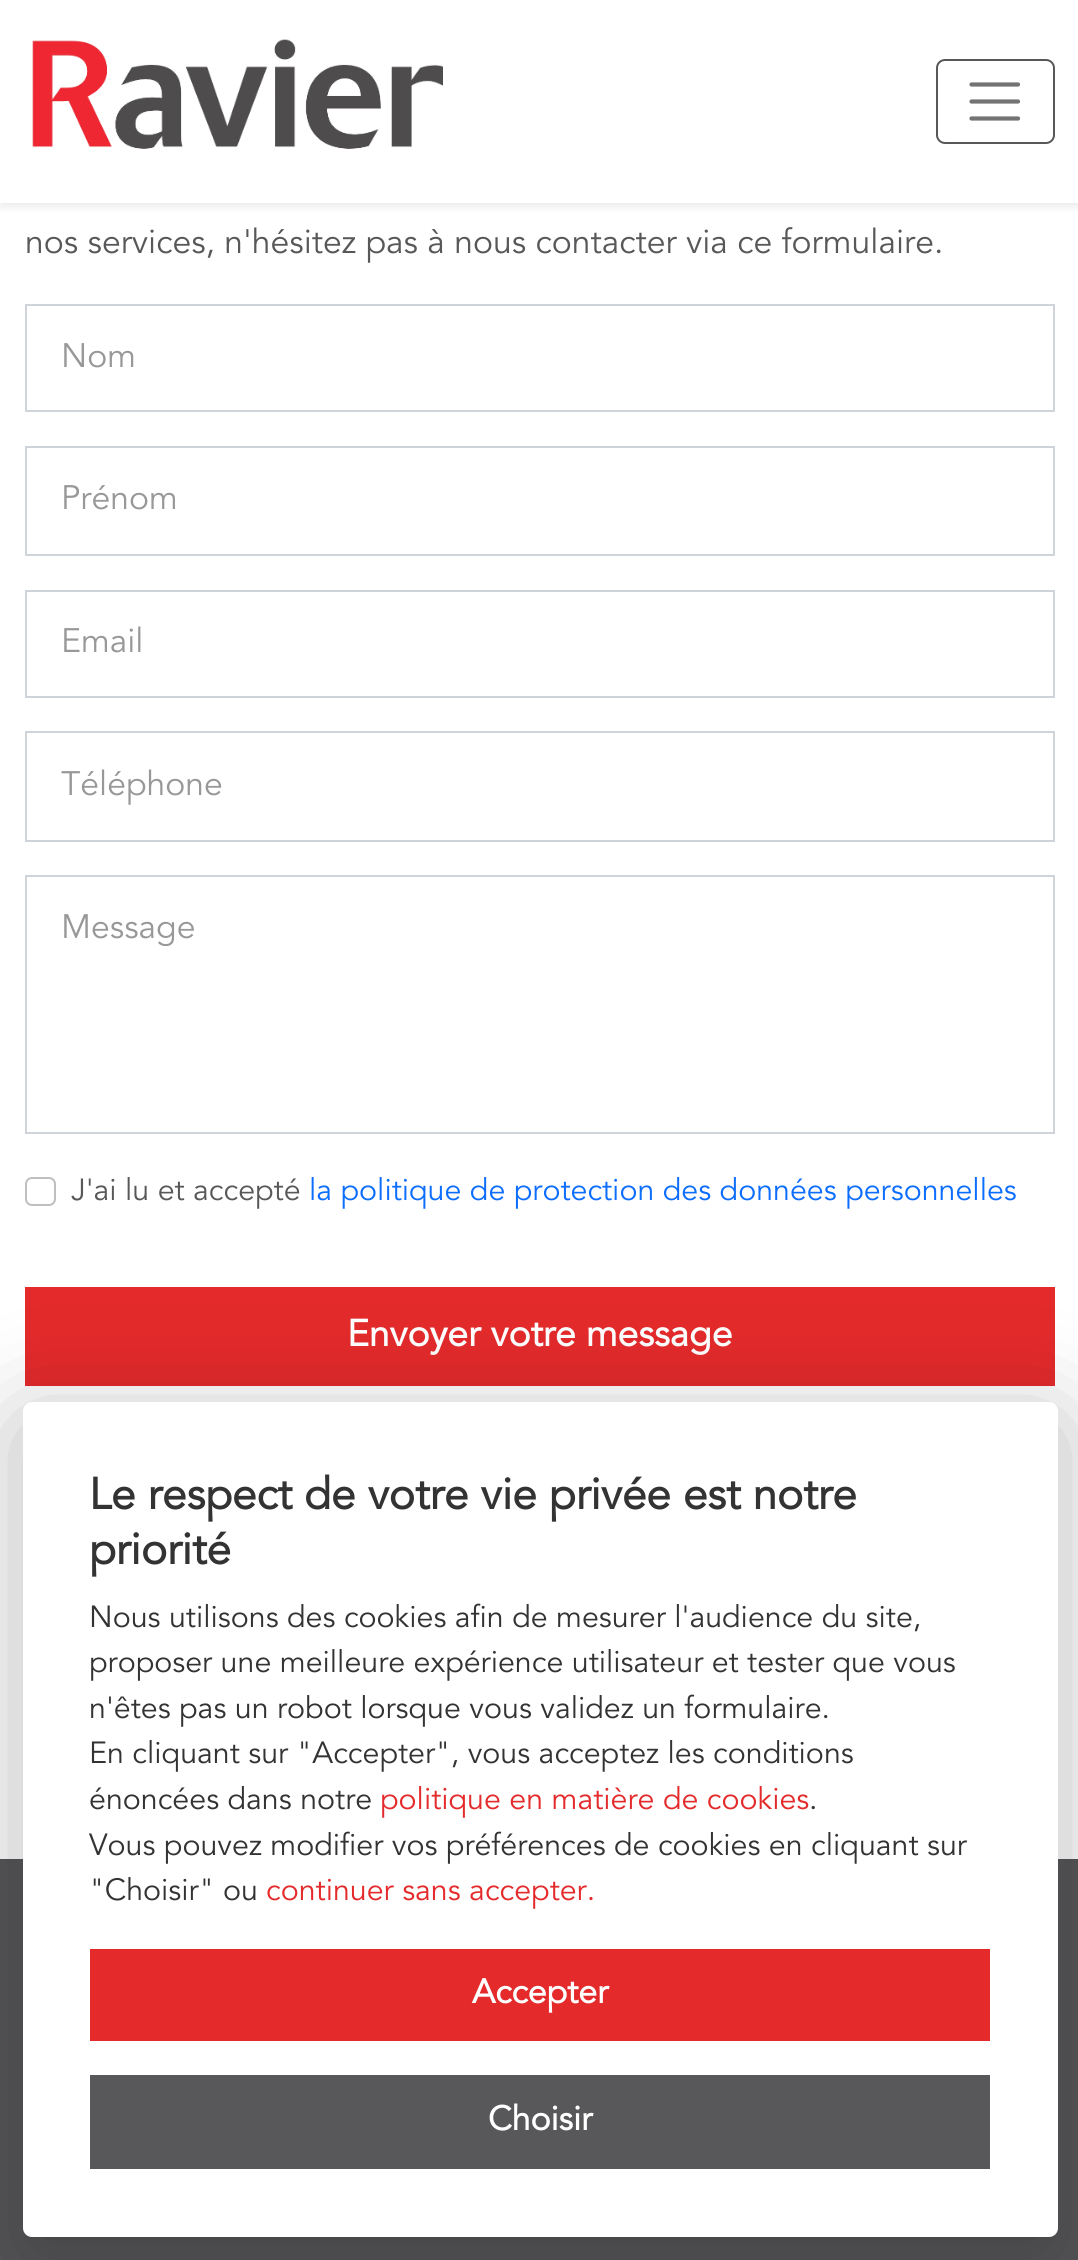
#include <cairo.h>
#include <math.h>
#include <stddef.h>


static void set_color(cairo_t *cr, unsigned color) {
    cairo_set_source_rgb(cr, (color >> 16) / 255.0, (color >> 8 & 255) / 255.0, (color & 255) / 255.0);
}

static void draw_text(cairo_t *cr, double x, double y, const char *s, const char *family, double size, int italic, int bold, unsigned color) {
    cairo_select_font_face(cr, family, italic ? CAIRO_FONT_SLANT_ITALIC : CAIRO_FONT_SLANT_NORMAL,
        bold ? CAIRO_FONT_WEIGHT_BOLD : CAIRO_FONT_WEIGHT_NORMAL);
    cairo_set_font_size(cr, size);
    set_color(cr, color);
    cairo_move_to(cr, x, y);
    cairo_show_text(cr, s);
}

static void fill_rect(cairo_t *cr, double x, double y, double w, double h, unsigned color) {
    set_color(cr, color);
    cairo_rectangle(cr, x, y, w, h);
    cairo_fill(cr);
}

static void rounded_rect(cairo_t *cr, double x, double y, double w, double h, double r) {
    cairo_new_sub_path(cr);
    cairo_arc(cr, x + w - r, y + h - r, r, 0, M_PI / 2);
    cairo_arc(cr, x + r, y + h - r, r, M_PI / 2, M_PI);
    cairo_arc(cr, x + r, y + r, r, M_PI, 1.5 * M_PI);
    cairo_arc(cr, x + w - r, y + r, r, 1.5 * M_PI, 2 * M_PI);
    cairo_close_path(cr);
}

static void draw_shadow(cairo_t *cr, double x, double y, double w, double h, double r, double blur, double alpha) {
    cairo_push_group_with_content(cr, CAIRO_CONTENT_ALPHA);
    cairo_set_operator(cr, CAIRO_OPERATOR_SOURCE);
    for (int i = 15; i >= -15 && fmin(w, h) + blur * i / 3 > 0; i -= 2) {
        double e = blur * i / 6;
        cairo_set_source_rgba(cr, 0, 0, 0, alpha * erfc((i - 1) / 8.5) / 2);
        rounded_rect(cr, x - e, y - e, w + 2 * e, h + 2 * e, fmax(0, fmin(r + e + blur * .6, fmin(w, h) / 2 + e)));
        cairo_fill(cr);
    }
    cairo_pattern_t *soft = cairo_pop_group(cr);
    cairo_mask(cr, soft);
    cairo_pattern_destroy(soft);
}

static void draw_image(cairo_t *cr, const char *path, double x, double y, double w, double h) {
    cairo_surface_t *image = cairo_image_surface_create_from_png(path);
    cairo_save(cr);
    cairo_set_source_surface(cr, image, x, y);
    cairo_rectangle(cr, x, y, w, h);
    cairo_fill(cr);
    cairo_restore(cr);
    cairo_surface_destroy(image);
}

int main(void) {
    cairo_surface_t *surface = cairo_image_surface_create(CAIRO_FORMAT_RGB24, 1078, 2260);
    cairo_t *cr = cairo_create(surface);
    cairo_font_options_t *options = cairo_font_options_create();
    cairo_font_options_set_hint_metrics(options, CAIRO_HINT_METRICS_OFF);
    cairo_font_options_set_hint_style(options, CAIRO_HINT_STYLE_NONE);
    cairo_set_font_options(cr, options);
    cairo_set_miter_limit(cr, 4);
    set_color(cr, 0xFFFFFF);
    cairo_paint(cr);
    set_color(cr, 0x000000);
    draw_shadow(cr, 0, 5, 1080, 202, 0, 4, 0.08);
    fill_rect(cr, 0, 0, 1078, 203, 0xFFFFFF);
    draw_image(cr, "assets/img1.png", 32, 39, 411, 110);
    rounded_rect(cr, 937, 60, 117, 83, 8);
    set_color(cr, 0x58585A);
    cairo_stroke(cr);
    cairo_new_path(cr);
    cairo_move_to(cr, 971.5, 84.5);
    cairo_line_to(cr, 1018, 84.5);
    cairo_move_to(cr, 971.5, 101.5);
    cairo_line_to(cr, 1018, 101.5);
    cairo_move_to(cr, 971.5, 118.5);
    cairo_line_to(cr, 1018, 118.5);
    set_color(cr, 0x737373);
    cairo_set_line_width(cr, 4.2);
    cairo_set_line_cap(cr, CAIRO_LINE_CAP_ROUND);
    cairo_stroke(cr);
    draw_text(cr, 25, 253, "nos services, n'hésitez pas à nous contacter via ce formulaire.", "Avenir", 33.75, 0, 0, 0x58585A);
    cairo_rectangle(cr, 26, 305, 1028, 106);
    set_color(cr, 0xCED4DA);
    cairo_set_line_width(cr, 2);
    cairo_set_line_cap(cr, CAIRO_LINE_CAP_BUTT);
    cairo_stroke(cr);
    draw_text(cr, 61, 367, "Nom", "Avenir", 33.75, 0, 0, 0x989898);
    cairo_rectangle(cr, 26, 447, 1028, 108);
    set_color(cr, 0xCED4DA);
    cairo_stroke(cr);
    draw_text(cr, 61, 509, "Prénom", "Avenir", 33.75, 0, 0, 0x989898);
    cairo_rectangle(cr, 26, 591, 1028, 106);
    set_color(cr, 0xCED4DA);
    cairo_stroke(cr);
    draw_text(cr, 61, 652, "Email", "Avenir", 33.75, 0, 0, 0x989898);
    cairo_rectangle(cr, 26, 732, 1028, 109);
    set_color(cr, 0xCED4DA);
    cairo_stroke(cr);
    draw_text(cr, 61, 795, "Téléphone", "Avenir", 33.75, 0, 0, 0x989898);
    cairo_rectangle(cr, 26, 876, 1028, 257);
    set_color(cr, 0xCED4DA);
    cairo_stroke(cr);
    draw_text(cr, 61, 938, "Message", "Avenir", 33.75, 0, 0, 0x989898);
    rounded_rect(cr, 26, 1178, 29, 27, 6);
    set_color(cr, 0xBFBFBF);
    cairo_stroke(cr);
    draw_text(cr, 71, 1200, "J'ai lu et accepté", "Avenir", 30.4, 0, 0, 0x58585A);
    draw_text(cr, 309, 1200, "la politique de protection des données personnelles", "Avenir", 30.4, 0, 0, 0x0D6EFD);
    fill_rect(cr, 25, 1287, 1030, 99, 0xE42A2B);
    draw_text(cr, 347, 1346, "Envoyer votre message", "Avenir", 37.1, 0, 1, 0xFFFFFF);
    fill_rect(cr, 0, 1859, 1078, 401, 0x58585A);
    set_color(cr, 0x000000);
    draw_shadow(cr, 0, 1402, 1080, 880, 32, 45, 0.2);
    set_color(cr, 0xFFFFFF);
    rounded_rect(cr, 23, 1402, 1035, 835, 9);
    cairo_fill(cr);
    draw_text(cr, 89, 1509, "Le respect de votre vie privée est notre", "Avenir", 43.9, 0, 1, 0x333333);
    draw_text(cr, 89, 1564, "priorité", "Avenir", 43.9, 0, 1, 0x333333);
    draw_text(cr, 89, 1627, "Nous utilisons des cookies afin de mesurer l'audience du site,", "Avenir", 30.4, 0, 0, 0x333333);
    draw_text(cr, 89, 1672, "proposer une meilleure expérience utilisateur et tester que vous", "Avenir", 30.4, 0, 0, 0x333333);
    draw_text(cr, 89, 1718, "n'êtes pas un robot lorsque vous validez un formulaire.", "Avenir", 30.4, 0, 0, 0x333333);
    draw_text(cr, 89, 1763, "En cliquant sur \"Accepter\", vous acceptez les conditions", "Avenir", 30.4, 0, 0, 0x333333);
    draw_text(cr, 89, 1809, "énoncées dans notre", "Avenir", 30.4, 0, 0, 0x333333);
    draw_text(cr, 380, 1809, "politique en matière de cookies", "Avenir", 30.4, 0, 0, 0xE42A2B);
    draw_text(cr, 809, 1809, ".", "Avenir", 30.4, 0, 0, 0x333333);
    draw_text(cr, 89, 1855, "Vous pouvez modifier vos préférences de cookies en cliquant sur", "Avenir", 30.4, 0, 0, 0x333333);
    draw_text(cr, 89, 1900, "\"Choisir\" ou", "Avenir", 30.4, 0, 0, 0x333333);
    draw_text(cr, 266, 1900, "continuer sans accepter.", "Avenir", 30.4, 0, 0, 0xE42A2B);
    fill_rect(cr, 90, 1949, 900, 92, 0xE42A2B);
    draw_text(cr, 472, 2003, "Accepter", "Avenir", 33.75, 0, 1, 0xFFFFFF);
    fill_rect(cr, 90, 2075, 900, 94, 0x58585A);
    draw_text(cr, 488, 2130, "Choisir", "Avenir", 33.75, 0, 1, 0xFFFFFF);
    cairo_surface_write_to_png(surface, "output.png");
    cairo_font_options_destroy(options);
    cairo_destroy(cr);
    cairo_surface_destroy(surface);
    return 0;
}
